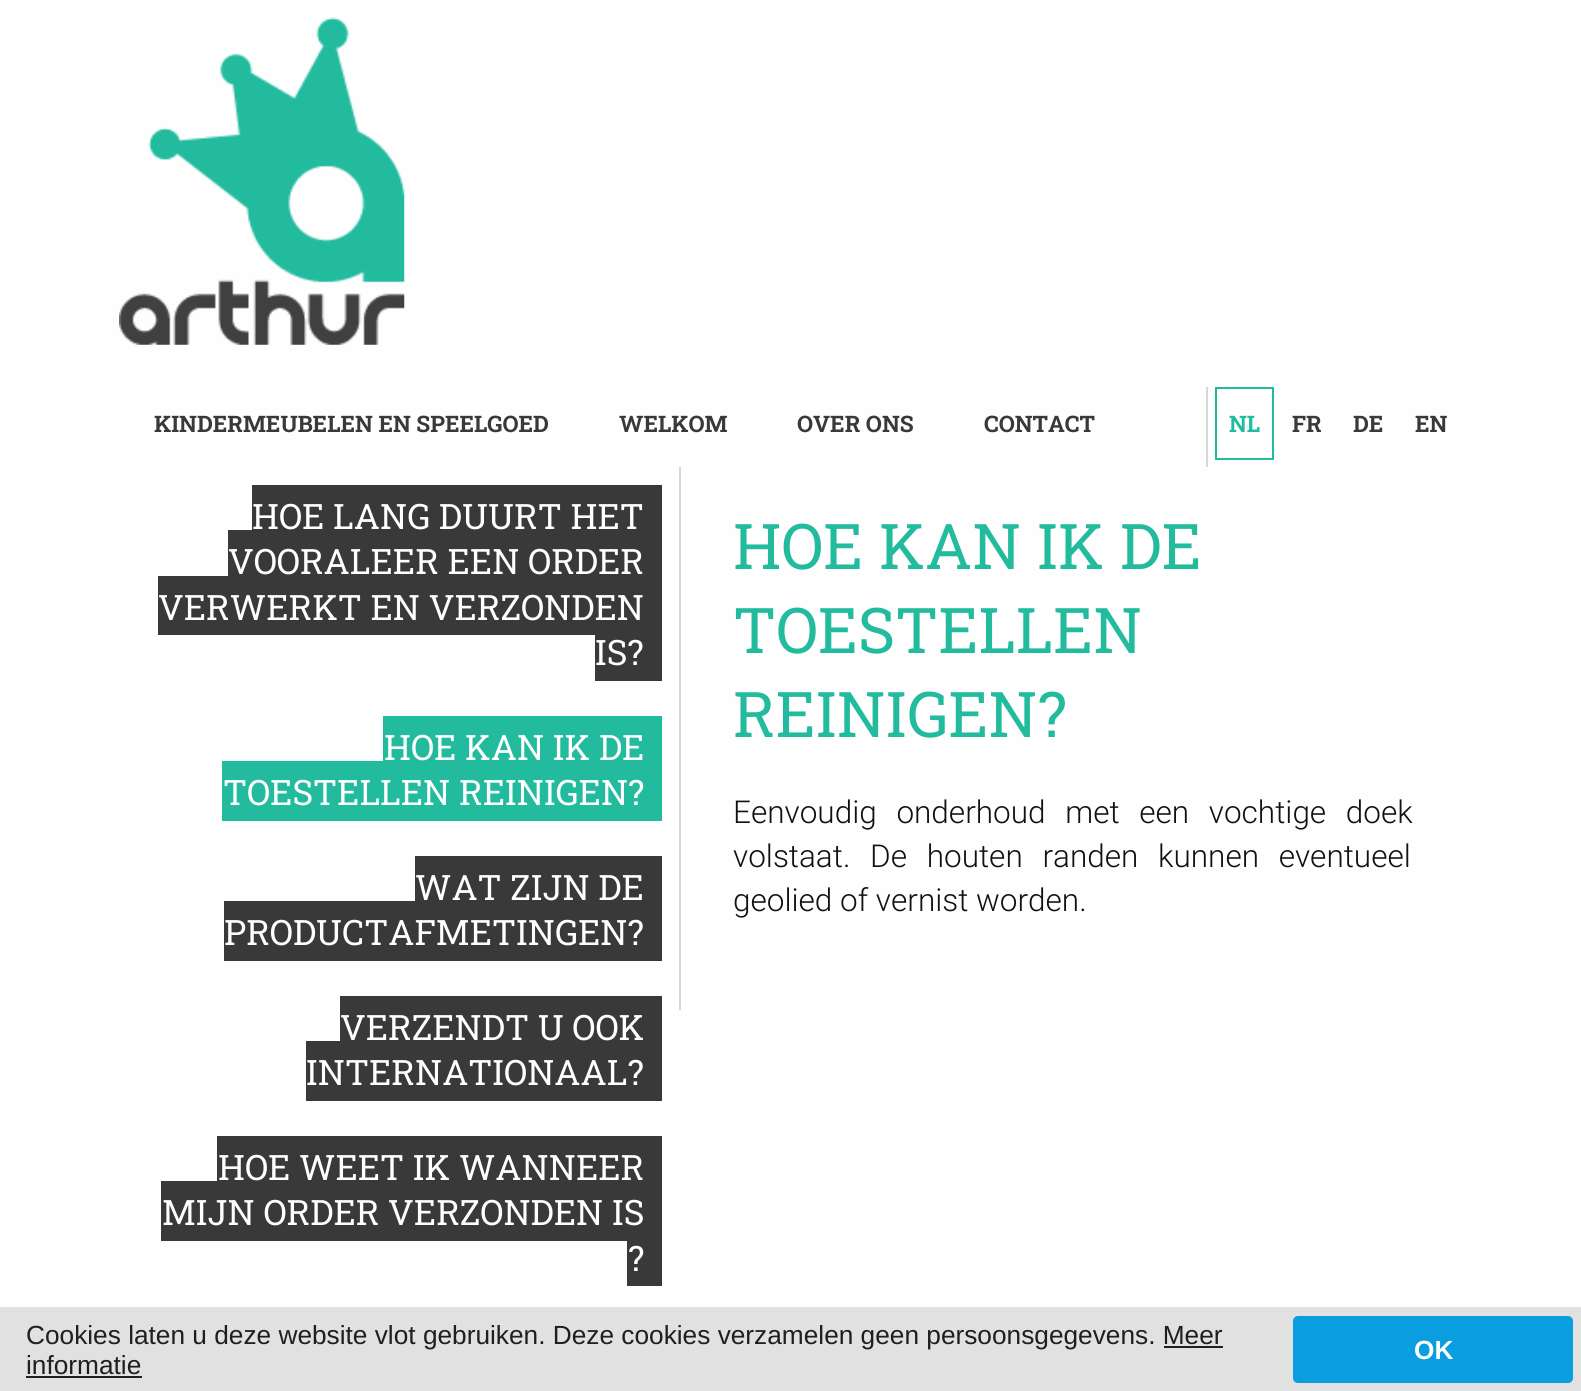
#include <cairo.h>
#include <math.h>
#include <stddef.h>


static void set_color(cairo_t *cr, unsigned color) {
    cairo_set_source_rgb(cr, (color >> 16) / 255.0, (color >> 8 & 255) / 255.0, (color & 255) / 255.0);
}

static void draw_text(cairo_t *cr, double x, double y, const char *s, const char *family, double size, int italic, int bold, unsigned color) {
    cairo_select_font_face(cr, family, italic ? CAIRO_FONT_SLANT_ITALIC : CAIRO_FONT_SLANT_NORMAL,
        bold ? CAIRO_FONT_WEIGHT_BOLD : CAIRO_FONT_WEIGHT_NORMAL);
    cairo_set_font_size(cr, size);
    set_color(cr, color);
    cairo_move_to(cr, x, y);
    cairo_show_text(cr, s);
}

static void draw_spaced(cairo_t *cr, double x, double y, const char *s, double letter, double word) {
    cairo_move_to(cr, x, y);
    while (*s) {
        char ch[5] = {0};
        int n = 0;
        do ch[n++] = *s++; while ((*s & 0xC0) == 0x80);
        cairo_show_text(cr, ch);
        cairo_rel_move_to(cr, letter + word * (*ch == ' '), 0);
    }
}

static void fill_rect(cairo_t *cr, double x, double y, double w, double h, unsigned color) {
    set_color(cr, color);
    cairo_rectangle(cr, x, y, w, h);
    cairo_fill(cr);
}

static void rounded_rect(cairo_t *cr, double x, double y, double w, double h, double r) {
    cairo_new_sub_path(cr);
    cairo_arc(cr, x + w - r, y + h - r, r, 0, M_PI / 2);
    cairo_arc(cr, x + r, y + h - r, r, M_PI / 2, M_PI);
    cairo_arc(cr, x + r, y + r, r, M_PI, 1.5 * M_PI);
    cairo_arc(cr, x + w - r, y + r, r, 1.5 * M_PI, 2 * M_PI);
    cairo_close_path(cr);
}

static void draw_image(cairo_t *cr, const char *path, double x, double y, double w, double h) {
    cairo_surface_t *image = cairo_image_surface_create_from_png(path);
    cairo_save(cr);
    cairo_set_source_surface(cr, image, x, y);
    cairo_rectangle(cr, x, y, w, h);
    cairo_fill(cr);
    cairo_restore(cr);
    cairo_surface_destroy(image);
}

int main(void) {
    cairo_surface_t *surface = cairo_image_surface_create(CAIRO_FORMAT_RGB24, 1581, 1391);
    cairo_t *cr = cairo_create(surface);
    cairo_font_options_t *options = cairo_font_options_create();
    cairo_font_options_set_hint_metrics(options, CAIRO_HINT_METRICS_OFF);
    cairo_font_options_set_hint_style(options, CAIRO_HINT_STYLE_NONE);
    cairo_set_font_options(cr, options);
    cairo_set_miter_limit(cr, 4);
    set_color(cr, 0xFEFEFE);
    cairo_paint(cr);
    draw_image(cr, "assets/img1.png", 119, 17, 286, 328);
    draw_text(cr, 154, 432, "KINDERMEUBELEN EN SPEELGOED", "Roboto Slab", 22.75, 0, 1, 0x393939);
    draw_text(cr, 619, 432, "WELKOM", "Roboto Slab", 22.75, 0, 1, 0x393939);
    draw_text(cr, 797, 432, "OVER ONS", "Roboto Slab", 22.75, 0, 1, 0x393939);
    draw_text(cr, 984, 432, "CONTACT", "Roboto Slab", 22.75, 0, 1, 0x393939);
    fill_rect(cr, 1206, 387, 2, 80, 0xD7D7D7);
    cairo_rectangle(cr, 1216, 388, 57, 71);
    set_color(cr, 0x22BB9D);
    cairo_stroke(cr);
    draw_text(cr, 1229, 432, "NL", "Roboto Slab", 22.75, 0, 1, 0x22BB9D);
    draw_text(cr, 1292, 432, "FR", "Roboto Slab", 22.75, 0, 1, 0x393939);
    draw_text(cr, 1353, 432, "DE", "Roboto Slab", 22.75, 0, 1, 0x393939);
    draw_text(cr, 1415, 432, "EN", "Roboto Slab", 22.75, 0, 1, 0x393939);
    fill_rect(cr, 644, 485, 18, 196, 0x393939);
    fill_rect(cr, 252, 485, 392, 45, 0x393939);
    draw_text(cr, 252, 529, "HOE LANG DUURT HET", "Roboto Slab", 35, 0, 0, 0xFEFEFE);
    fill_rect(cr, 228, 530, 416, 46, 0x393939);
    draw_text(cr, 228, 574, "VOORALEER EEN ORDER", "Roboto Slab", 35, 0, 0, 0xFEFEFE);
    fill_rect(cr, 158, 576, 486, 59, 0x393939);
    draw_text(cr, 158, 620, "VERWERKT EN VERZONDEN", "Roboto Slab", 35, 0, 0, 0xFEFEFE);
    fill_rect(cr, 595, 635, 49, 46, 0x393939);
    draw_text(cr, 595, 665, "IS?", "Roboto Slab", 35, 0, 0, 0xFEFEFE);
    fill_rect(cr, 644, 716, 18, 105, 0x22BB9D);
    fill_rect(cr, 383, 716, 261, 45, 0x22BB9D);
    draw_text(cr, 384, 760, "HOE KAN IK DE", "Roboto Slab", 35, 0, 0, 0xFEFEFE);
    fill_rect(cr, 222, 761, 422, 60, 0x22BB9D);
    draw_text(cr, 223, 805, "TOESTELLEN REINIGEN?", "Roboto Slab", 35, 0, 0, 0xFEFEFE);
    fill_rect(cr, 644, 856, 18, 105, 0x393939);
    fill_rect(cr, 415, 856, 229, 45, 0x393939);
    draw_text(cr, 415, 900, "WAT ZIJN DE", "Roboto Slab", 35, 0, 0, 0xFEFEFE);
    fill_rect(cr, 224, 901, 420, 60, 0x393939);
    draw_text(cr, 224, 945, "PRODUCTAFMETINGEN?", "Roboto Slab", 35, 0, 0, 0xFEFEFE);
    fill_rect(cr, 644, 996, 18, 105, 0x393939);
    fill_rect(cr, 340, 996, 304, 45, 0x393939);
    draw_text(cr, 340, 1040, "VERZENDT U OOK", "Roboto Slab", 35, 0, 0, 0xFEFEFE);
    fill_rect(cr, 306, 1041, 338, 60, 0x393939);
    draw_text(cr, 306, 1085, "INTERNATIONAAL?", "Roboto Slab", 35, 0, 0, 0xFEFEFE);
    fill_rect(cr, 627, 1136, 35, 150, 0x393939);
    fill_rect(cr, 217, 1136, 410, 45, 0x393939);
    draw_text(cr, 218, 1180, "HOE WEET IK WANNEER", "Roboto Slab", 35, 0, 0, 0xFEFEFE);
    fill_rect(cr, 161, 1181, 466, 60, 0x393939);
    draw_text(cr, 162, 1225, "MIJN ORDER VERZONDEN IS", "Roboto Slab", 35, 0, 0, 0xFEFEFE);
    draw_text(cr, 628, 1271, "?", "Roboto Slab", 35, 0, 0, 0xFEFEFE);
    fill_rect(cr, 679, 467, 2, 543, 0xD7D7D7);
    draw_text(cr, 733, 569, "HOE KAN IK DE", "Roboto Slab", 63, 0, 0, 0x22BB9D);
    draw_text(cr, 733, 653, "TOESTELLEN", "Roboto Slab", 63, 0, 0, 0x22BB9D);
    draw_text(cr, 733, 737, "REINIGEN?", "Roboto Slab", 63, 0, 0, 0x22BB9D);
    cairo_select_font_face(cr, "Roboto Light", CAIRO_FONT_SLANT_NORMAL, CAIRO_FONT_WEIGHT_NORMAL);
    cairo_set_font_size(cr, 31.5);
    set_color(cr, 0x111111);
    draw_spaced(cr, 733, 823, "Eenvoudig onderhoud met een vochtige doek", 0, 12);
    draw_spaced(cr, 733, 867, "volstaat. De houten randen kunnen eventueel", 0, 12);
    draw_text(cr, 733, 911, "geolied of vernist worden.", "Roboto Light", 31.5, 0, 0, 0x111111);
    fill_rect(cr, 0, 1307, 1581, 84, 0xE1E1E1);
    draw_text(cr, 26, 1344, "Cookies laten u deze website vlot gebruiken. Deze cookies verzamelen geen persoonsgegevens. Meer", "Liberation Sans", 26.25, 0, 0, 0x1F1F1F);
    draw_text(cr, 26, 1374, "informatie", "Liberation Sans", 26.25, 0, 0, 0x1F1F1F);
    fill_rect(cr, 1164, 1346, 59, 2, 0x1F1F1F);
    fill_rect(cr, 26, 1376, 116, 2, 0x1F1F1F);
    set_color(cr, 0x0A9DDF);
    rounded_rect(cr, 1293, 1316, 280, 67, 5);
    cairo_fill(cr);
    draw_text(cr, 1414, 1359, "OK", "Liberation Sans", 26.25, 0, 1, 0xFEFEFE);
    cairo_surface_write_to_png(surface, "output.png");
    cairo_font_options_destroy(options);
    cairo_destroy(cr);
    cairo_surface_destroy(surface);
    return 0;
}
